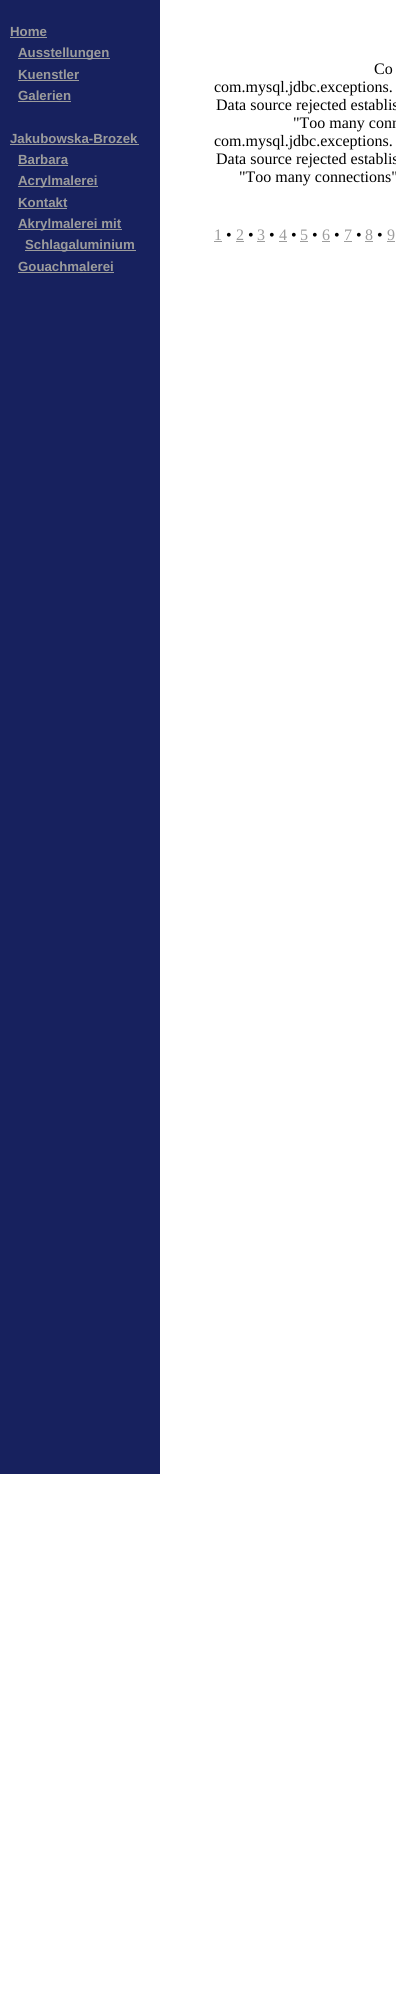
#include <cairo.h>
#include <math.h>
#include <stddef.h>


static void set_color(cairo_t *cr, unsigned color) {
    cairo_set_source_rgb(cr, (color >> 16) / 255.0, (color >> 8 & 255) / 255.0, (color & 255) / 255.0);
}

static void draw_text(cairo_t *cr, double x, double y, const char *s, const char *family, double size, int italic, int bold, unsigned color) {
    cairo_select_font_face(cr, family, italic ? CAIRO_FONT_SLANT_ITALIC : CAIRO_FONT_SLANT_NORMAL,
        bold ? CAIRO_FONT_WEIGHT_BOLD : CAIRO_FONT_WEIGHT_NORMAL);
    cairo_set_font_size(cr, size);
    set_color(cr, color);
    cairo_move_to(cr, x, y);
    cairo_show_text(cr, s);
}

static void fill_rect(cairo_t *cr, double x, double y, double w, double h, unsigned color) {
    set_color(cr, color);
    cairo_rectangle(cr, x, y, w, h);
    cairo_fill(cr);
}

int main(void) {
    cairo_surface_t *surface = cairo_image_surface_create(CAIRO_FORMAT_RGB24, 396, 1994);
    cairo_t *cr = cairo_create(surface);
    cairo_font_options_t *options = cairo_font_options_create();
    cairo_font_options_set_hint_metrics(options, CAIRO_HINT_METRICS_OFF);
    cairo_font_options_set_hint_style(options, CAIRO_HINT_STYLE_NONE);
    cairo_set_font_options(cr, options);
    cairo_set_miter_limit(cr, 4);
    set_color(cr, 0xFFFFFF);
    cairo_paint(cr);
    fill_rect(cr, 0, 0, 160, 1474, 0x17215E);
    draw_text(cr, 10, 36, "Home", "Liberation Sans", 13.25, 0, 1, 0x9C9C9C);
    fill_rect(cr, 10, 37, 37, 1, 0x9C9C9C);
    fill_rect(cr, 18, 58, 92, 1, 0x9C9C9C);
    draw_text(cr, 18, 57, "Ausstellungen", "Liberation Sans", 13.25, 0, 1, 0x9C9C9C);
    draw_text(cr, 18, 79, "Kuenstler", "Liberation Sans", 13.25, 0, 1, 0x9C9C9C);
    fill_rect(cr, 18, 80, 61, 1, 0x9C9C9C);
    draw_text(cr, 18, 100, "Galerien", "Liberation Sans", 13.25, 0, 1, 0x9C9C9C);
    fill_rect(cr, 18, 101, 53, 1, 0x9C9C9C);
    draw_text(cr, 10, 143, "Jakubowska-Brozek", "Liberation Sans", 13.25, 0, 1, 0x9C9C9C);
    fill_rect(cr, 10, 144, 129, 1, 0x9C9C9C);
    draw_text(cr, 18, 164, "Barbara", "Liberation Sans", 13.25, 0, 1, 0x9C9C9C);
    fill_rect(cr, 18, 165, 50, 1, 0x9C9C9C);
    fill_rect(cr, 18, 186, 80, 1, 0x9C9C9C);
    draw_text(cr, 18, 185, "Acrylmalerei", "Liberation Sans", 13.25, 0, 1, 0x9C9C9C);
    draw_text(cr, 18, 207, "Kontakt", "Liberation Sans", 13.25, 0, 1, 0x9C9C9C);
    fill_rect(cr, 18, 208, 49, 1, 0x9C9C9C);
    fill_rect(cr, 18, 229, 104, 1, 0x9C9C9C);
    draw_text(cr, 18, 228, "Akrylmalerei mit", "Liberation Sans", 13.25, 0, 1, 0x9C9C9C);
    fill_rect(cr, 25, 250, 111, 1, 0x9C9C9C);
    draw_text(cr, 25, 249, "Schlagaluminium", "Liberation Sans", 13.25, 0, 1, 0x9C9C9C);
    draw_text(cr, 18, 271, "Gouachmalerei", "Liberation Sans", 13.25, 0, 1, 0x9C9C9C);
    fill_rect(cr, 18, 272, 96, 1, 0x9C9C9C);
    draw_text(cr, 374, 74, "Co", "Liberation Serif", 16, 0, 0, 0x000000);
    draw_text(cr, 214, 92, "com.mysql.jdbc.exceptions.", "Liberation Serif", 16, 0, 0, 0x000000);
    draw_text(cr, 216, 110, "Data source rejected establis", "Liberation Serif", 16, 0, 0, 0x000000);
    draw_text(cr, 293, 128, "\"Too many conn", "Liberation Serif", 16, 0, 0, 0x000000);
    draw_text(cr, 214, 146, "com.mysql.jdbc.exceptions.", "Liberation Serif", 16, 0, 0, 0x000000);
    draw_text(cr, 216, 164, "Data source rejected establis", "Liberation Serif", 16, 0, 0, 0x000000);
    draw_text(cr, 239, 182, "\"Too many connections\"", "Liberation Serif", 16, 0, 0, 0x000000);
    draw_text(cr, 214, 240, "1", "Liberation Serif", 16, 0, 0, 0x9C9C9C);
    fill_rect(cr, 214, 241, 8, 1, 0x9C9C9C);
    draw_text(cr, 226, 240, "•", "Liberation Serif", 16, 0, 0, 0x000000);
    draw_text(cr, 236, 240, "2", "Liberation Serif", 16, 0, 0, 0x9C9C9C);
    fill_rect(cr, 236, 241, 8, 1, 0x9C9C9C);
    draw_text(cr, 248, 240, "•", "Liberation Serif", 16, 0, 0, 0x000000);
    draw_text(cr, 257, 240, "3", "Liberation Serif", 16, 0, 0, 0x9C9C9C);
    fill_rect(cr, 257, 241, 8, 1, 0x9C9C9C);
    draw_text(cr, 269, 240, "•", "Liberation Serif", 16, 0, 0, 0x000000);
    draw_text(cr, 279, 240, "4", "Liberation Serif", 16, 0, 0, 0x9C9C9C);
    fill_rect(cr, 279, 241, 8, 1, 0x9C9C9C);
    draw_text(cr, 291, 240, "•", "Liberation Serif", 16, 0, 0, 0x000000);
    draw_text(cr, 300, 240, "5", "Liberation Serif", 16, 0, 0, 0x9C9C9C);
    fill_rect(cr, 300, 241, 8, 1, 0x9C9C9C);
    draw_text(cr, 312, 240, "•", "Liberation Serif", 16, 0, 0, 0x000000);
    draw_text(cr, 322, 240, "6", "Liberation Serif", 16, 0, 0, 0x9C9C9C);
    fill_rect(cr, 322, 241, 8, 1, 0x9C9C9C);
    draw_text(cr, 334, 240, "•", "Liberation Serif", 16, 0, 0, 0x000000);
    draw_text(cr, 344, 240, "7", "Liberation Serif", 16, 0, 0, 0x9C9C9C);
    fill_rect(cr, 344, 241, 8, 1, 0x9C9C9C);
    draw_text(cr, 356, 240, "•", "Liberation Serif", 16, 0, 0, 0x000000);
    draw_text(cr, 365, 240, "8", "Liberation Serif", 16, 0, 0, 0x9C9C9C);
    fill_rect(cr, 365, 241, 8, 1, 0x9C9C9C);
    draw_text(cr, 377, 240, "•", "Liberation Serif", 16, 0, 0, 0x000000);
    draw_text(cr, 387, 240, "9", "Liberation Serif", 16, 0, 0, 0x9C9C9C);
    fill_rect(cr, 387, 241, 8, 1, 0x9C9C9C);
    cairo_surface_write_to_png(surface, "output.png");
    cairo_font_options_destroy(options);
    cairo_destroy(cr);
    cairo_surface_destroy(surface);
    return 0;
}
